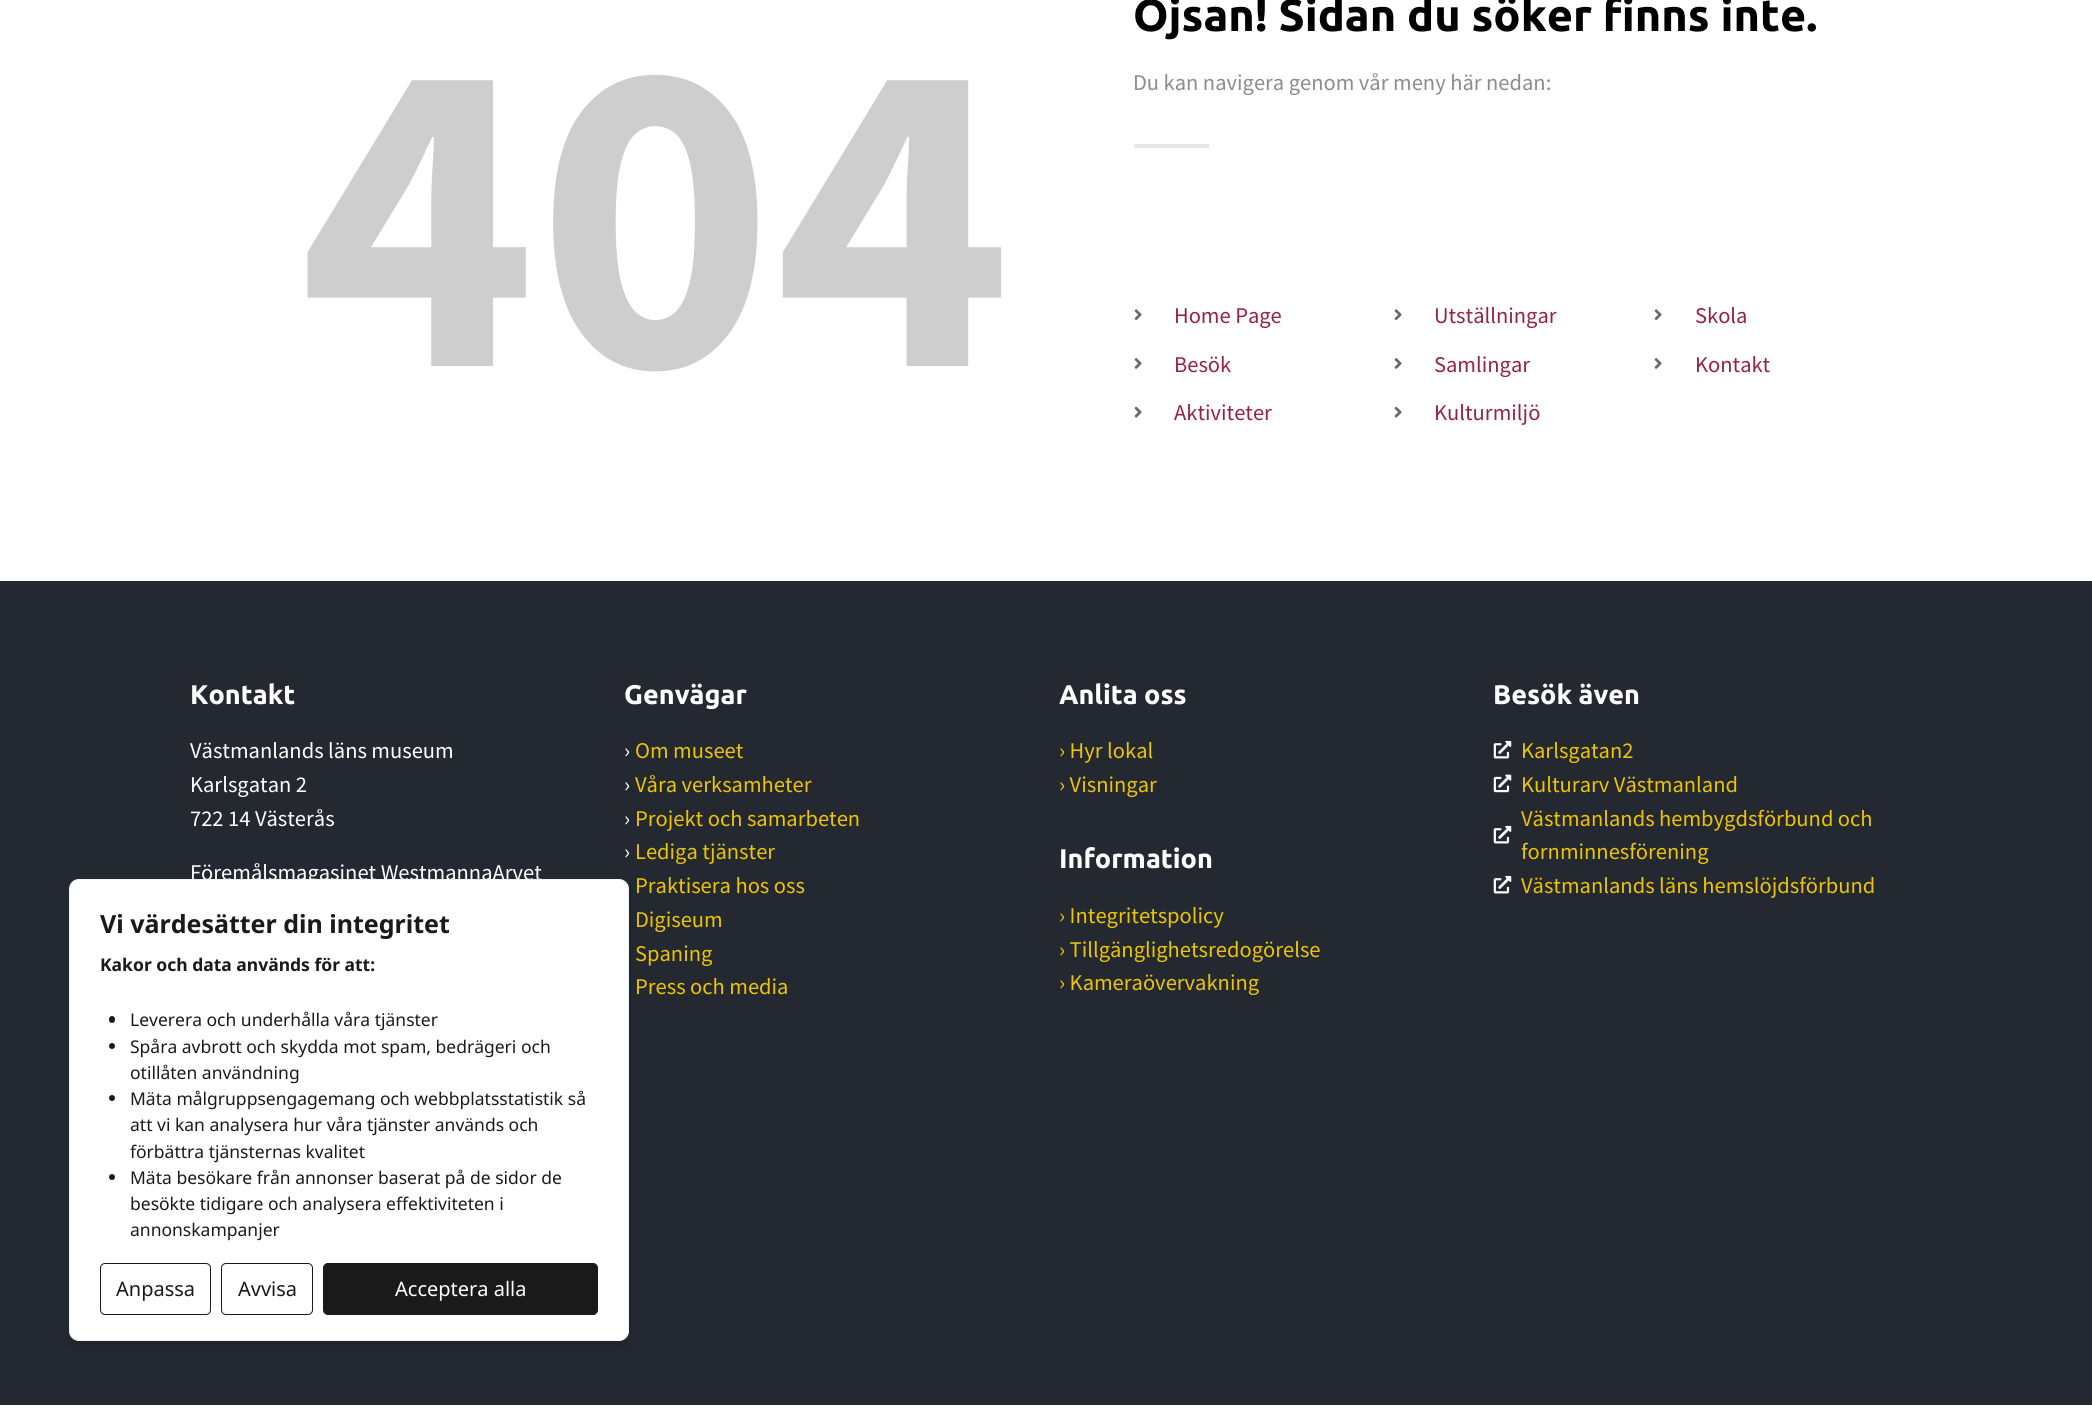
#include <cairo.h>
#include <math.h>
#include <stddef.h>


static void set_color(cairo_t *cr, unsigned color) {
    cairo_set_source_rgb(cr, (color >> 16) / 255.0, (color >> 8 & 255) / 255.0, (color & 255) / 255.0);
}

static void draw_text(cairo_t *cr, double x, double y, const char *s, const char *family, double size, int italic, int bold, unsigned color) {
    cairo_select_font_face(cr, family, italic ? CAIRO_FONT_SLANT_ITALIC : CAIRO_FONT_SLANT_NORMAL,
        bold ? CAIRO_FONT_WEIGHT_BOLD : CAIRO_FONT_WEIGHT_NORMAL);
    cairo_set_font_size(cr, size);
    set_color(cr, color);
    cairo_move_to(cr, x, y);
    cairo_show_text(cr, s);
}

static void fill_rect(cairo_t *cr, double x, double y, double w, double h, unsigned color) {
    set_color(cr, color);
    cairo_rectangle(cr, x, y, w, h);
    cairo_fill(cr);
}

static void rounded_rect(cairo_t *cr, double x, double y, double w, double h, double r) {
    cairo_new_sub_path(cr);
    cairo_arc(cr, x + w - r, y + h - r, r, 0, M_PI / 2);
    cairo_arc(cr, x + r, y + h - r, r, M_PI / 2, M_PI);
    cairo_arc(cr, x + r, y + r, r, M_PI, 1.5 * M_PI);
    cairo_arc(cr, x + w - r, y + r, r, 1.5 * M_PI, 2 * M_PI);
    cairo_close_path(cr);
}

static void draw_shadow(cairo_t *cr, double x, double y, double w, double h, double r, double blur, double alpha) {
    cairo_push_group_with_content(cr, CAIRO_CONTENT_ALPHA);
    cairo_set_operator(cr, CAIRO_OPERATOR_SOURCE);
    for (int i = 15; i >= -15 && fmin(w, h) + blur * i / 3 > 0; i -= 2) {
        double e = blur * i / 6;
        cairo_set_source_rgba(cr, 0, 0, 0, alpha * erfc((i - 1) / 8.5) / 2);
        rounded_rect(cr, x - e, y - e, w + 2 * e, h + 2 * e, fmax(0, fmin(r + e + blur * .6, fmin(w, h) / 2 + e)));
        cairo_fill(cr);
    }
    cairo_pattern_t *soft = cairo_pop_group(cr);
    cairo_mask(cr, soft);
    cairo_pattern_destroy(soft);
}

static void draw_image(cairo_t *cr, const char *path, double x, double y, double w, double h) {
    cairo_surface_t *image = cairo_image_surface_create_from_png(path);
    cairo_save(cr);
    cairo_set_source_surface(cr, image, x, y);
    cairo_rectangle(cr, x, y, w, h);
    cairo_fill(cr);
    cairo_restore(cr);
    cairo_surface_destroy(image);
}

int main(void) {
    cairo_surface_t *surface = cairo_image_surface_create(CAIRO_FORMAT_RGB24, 2092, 1420);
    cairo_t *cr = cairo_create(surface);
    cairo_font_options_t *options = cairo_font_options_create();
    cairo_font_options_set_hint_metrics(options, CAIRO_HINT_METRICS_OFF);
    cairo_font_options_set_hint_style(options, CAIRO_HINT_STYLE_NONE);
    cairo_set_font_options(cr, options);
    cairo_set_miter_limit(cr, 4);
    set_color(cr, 0xFFFFFF);
    cairo_paint(cr);
    draw_text(cr, 299, 366, "404", "Source Sans Pro", 450, 0, 1, 0xCECECE);
    draw_text(cr, 1133, 31, "Ojsan! Sidan du söker finns inte.", "Ubuntu", 45, 0, 1, 0x000000);
    draw_text(cr, 1133, 90, "Du kan navigera genom vår meny här nedan:", "Source Sans Pro", 22.5, 0, 0, 0x8C8C8C);
    fill_rect(cr, 1134, 144, 75, 4, 0xE8E8E8);
    draw_image(cr, "assets/img1.png", 1134, 309, 8, 12);
    draw_text(cr, 1174, 323, "Home Page", "Source Sans Pro", 22.5, 0, 0, 0x972147);
    draw_image(cr, "assets/img2.png", 1134, 358, 8, 11);
    draw_text(cr, 1174, 372, "Besök", "Source Sans Pro", 22.5, 0, 0, 0x972147);
    draw_image(cr, "assets/img3.png", 1134, 406, 8, 12);
    draw_text(cr, 1174, 420, "Aktiviteter", "Source Sans Pro", 22.5, 0, 0, 0x972147);
    draw_image(cr, "assets/img1.png", 1394, 309, 8, 12);
    draw_text(cr, 1434, 323, "Utställningar", "Source Sans Pro", 22.5, 0, 0, 0x972147);
    draw_image(cr, "assets/img2.png", 1394, 358, 8, 11);
    draw_text(cr, 1434, 372, "Samlingar", "Source Sans Pro", 22.5, 0, 0, 0x972147);
    draw_image(cr, "assets/img3.png", 1394, 406, 8, 12);
    draw_text(cr, 1434, 420, "Kulturmiljö", "Source Sans Pro", 22.5, 0, 0, 0x972147);
    draw_image(cr, "assets/img1.png", 1654, 309, 8, 12);
    draw_text(cr, 1695, 323, "Skola", "Source Sans Pro", 22.5, 0, 0, 0x972147);
    draw_image(cr, "assets/img2.png", 1654, 358, 8, 11);
    draw_text(cr, 1695, 372, "Kontakt", "Source Sans Pro", 22.5, 0, 0, 0x972147);
    fill_rect(cr, 0, 581, 2092, 824, 0x242831);
    draw_text(cr, 190, 704, "Kontakt", "Ubuntu", 27, 0, 1, 0xFFFFFF);
    draw_text(cr, 190, 758, "Västmanlands läns museum", "Source Sans Pro", 22.5, 0, 0, 0xFFFFFF);
    draw_text(cr, 190, 792, "Karlsgatan 2", "Source Sans Pro", 22.5, 0, 0, 0xFFFFFF);
    draw_text(cr, 190, 826, "722 14 Västerås", "Source Sans Pro", 22.5, 0, 0, 0xFFFFFF);
    draw_text(cr, 190, 880, "Föremålsmagasinet WestmannaArvet", "Source Sans Pro", 22.5, 0, 0, 0xFFFFFF);
    draw_text(cr, 624, 704, "Genvägar", "Ubuntu", 27, 0, 1, 0xFFFFFF);
    draw_text(cr, 624, 758, "›", "Source Sans Pro", 22.5, 0, 0, 0xFFFFFF);
    draw_text(cr, 635, 758, "Om museet", "Source Sans Pro", 22.5, 0, 0, 0xECC500);
    draw_text(cr, 624, 792, "›", "Source Sans Pro", 22.5, 0, 0, 0xFFFFFF);
    draw_text(cr, 635, 792, "Våra verksamheter", "Source Sans Pro", 22.5, 0, 0, 0xECC500);
    draw_text(cr, 624, 826, "›", "Source Sans Pro", 22.5, 0, 0, 0xFFFFFF);
    draw_text(cr, 635, 826, "Projekt och samarbeten", "Source Sans Pro", 22.5, 0, 0, 0xECC500);
    draw_text(cr, 624, 859, "›", "Source Sans Pro", 22.5, 0, 0, 0xFFFFFF);
    draw_text(cr, 635, 859, "Lediga tjänster", "Source Sans Pro", 22.5, 0, 0, 0xECC500);
    draw_text(cr, 635, 893, "Praktisera hos oss", "Source Sans Pro", 22.5, 0, 0, 0xECC500);
    draw_text(cr, 635, 927, "Digiseum", "Source Sans Pro", 22.5, 0, 0, 0xECC500);
    draw_text(cr, 635, 961, "Spaning", "Source Sans Pro", 22.5, 0, 0, 0xECC500);
    draw_text(cr, 635, 994, "Press och media", "Source Sans Pro", 22.5, 0, 0, 0xECC500);
    draw_text(cr, 1059, 704, "Anlita oss", "Ubuntu", 27, 0, 1, 0xFFFFFF);
    draw_text(cr, 1059, 758, "› Hyr lokal", "Source Sans Pro", 22.5, 0, 0, 0xECC500);
    draw_text(cr, 1059, 792, "› Visningar", "Source Sans Pro", 22.5, 0, 0, 0xECC500);
    draw_text(cr, 1059, 868, "Information", "Ubuntu", 27, 0, 1, 0xFFFFFF);
    draw_text(cr, 1059, 923, "› Integritetspolicy", "Source Sans Pro", 22.5, 0, 0, 0xECC500);
    draw_text(cr, 1059, 957, "› Tillgänglighetsredogörelse", "Source Sans Pro", 22.5, 0, 0, 0xECC500);
    draw_text(cr, 1059, 990, "› Kameraövervakning", "Source Sans Pro", 22.5, 0, 0, 0xECC500);
    draw_text(cr, 1493, 704, "Besök även", "Ubuntu", 27, 0, 1, 0xFFFFFF);
    draw_image(cr, "assets/img4.png", 1493, 740, 19, 19);
    draw_text(cr, 1521, 758, "Karlsgatan2", "Source Sans Pro", 22.5, 0, 0, 0xECC500);
    draw_image(cr, "assets/img5.png", 1493, 774, 19, 19);
    draw_text(cr, 1521, 792, "Kulturarv Västmanland", "Source Sans Pro", 22.5, 0, 0, 0xECC500);
    draw_image(cr, "assets/img4.png", 1493, 825, 19, 19);
    draw_text(cr, 1521, 826, "Västmanlands hembygdsförbund och", "Source Sans Pro", 22.5, 0, 0, 0xECC500);
    draw_text(cr, 1521, 859, "fornminnesförening", "Source Sans Pro", 22.5, 0, 0, 0xECC500);
    draw_image(cr, "assets/img4.png", 1493, 875, 19, 19);
    draw_text(cr, 1521, 893, "Västmanlands läns hemslöjdsförbund", "Source Sans Pro", 22.5, 0, 0, 0xECC500);
    set_color(cr, 0x000000);
    draw_shadow(cr, 69, 886, 560, 463, 10, 5, 0.12);
    set_color(cr, 0xFFFFFF);
    rounded_rect(cr, 69.5, 879.5, 559, 461, 9.5);
    cairo_fill_preserve(cr);
    set_color(cr, 0xF4F4F4);
    cairo_set_line_width(cr, 1);
    cairo_stroke(cr);
    draw_text(cr, 100, 933, "Vi värdesätter din integritet", "Noto Sans", 25, 0, 1, 0x1A1A1A);
    draw_text(cr, 100, 971, "Kakor och data används för att:", "Noto Sans", 17.5, 0, 1, 0x1A1A1A);
    rounded_rect(cr, 109, 1016, 6, 7, 3);
    cairo_fill(cr);
    draw_text(cr, 130, 1026, "Leverera och underhålla våra tjänster", "Noto Sans", 17.5, 0, 0, 0x1A1A1A);
    cairo_new_path(cr);
    cairo_arc(cr, 112, 1046, 3, 0, 2 * M_PI);
    cairo_fill(cr);
    draw_text(cr, 130, 1053, "Spåra avbrott och skydda mot spam, bedrägeri och", "Noto Sans", 17.5, 0, 0, 0x1A1A1A);
    draw_text(cr, 130, 1079, "otillåten användning", "Noto Sans", 17.5, 0, 0, 0x1A1A1A);
    cairo_new_path(cr);
    cairo_arc(cr, 112, 1098, 3, 0, 2 * M_PI);
    cairo_fill(cr);
    draw_text(cr, 130, 1105, "Mäta målgruppsengagemang och webbplatsstatistik så", "Noto Sans", 17.5, 0, 0, 0x1A1A1A);
    draw_text(cr, 130, 1131, "att vi kan analysera hur våra tjänster används och", "Noto Sans", 17.5, 0, 0, 0x1A1A1A);
    draw_text(cr, 130, 1158, "förbättra tjänsternas kvalitet", "Noto Sans", 17.5, 0, 0, 0x1A1A1A);
    cairo_new_path(cr);
    cairo_arc(cr, 112, 1177, 3, 0, 2 * M_PI);
    cairo_fill(cr);
    draw_text(cr, 130, 1184, "Mäta besökare från annonser baserat på de sidor de", "Noto Sans", 17.5, 0, 0, 0x1A1A1A);
    draw_text(cr, 130, 1210, "besökte tidigare och analysera effektiviteten i", "Noto Sans", 17.5, 0, 0, 0x1A1A1A);
    draw_text(cr, 130, 1236, "annonskampanjer", "Noto Sans", 17.5, 0, 0, 0x1A1A1A);
    rounded_rect(cr, 100.5, 1263.5, 110, 51, 4.5);
    cairo_stroke(cr);
    draw_text(cr, 116, 1296, "Anpassa", "Noto Sans", 20, 0, 0, 0x1A1A1A);
    rounded_rect(cr, 221.5, 1263.5, 91, 51, 4.5);
    cairo_stroke(cr);
    draw_text(cr, 238, 1296, "Avvisa", "Noto Sans", 20, 0, 0, 0x1A1A1A);
    rounded_rect(cr, 323.5, 1263.5, 274, 51, 4.5);
    cairo_fill_preserve(cr);
    cairo_stroke(cr);
    draw_text(cr, 395, 1296, "Acceptera alla", "Noto Sans", 20, 0, 0, 0xFFFFFF);
    cairo_surface_write_to_png(surface, "output.png");
    cairo_font_options_destroy(options);
    cairo_destroy(cr);
    cairo_surface_destroy(surface);
    return 0;
}
